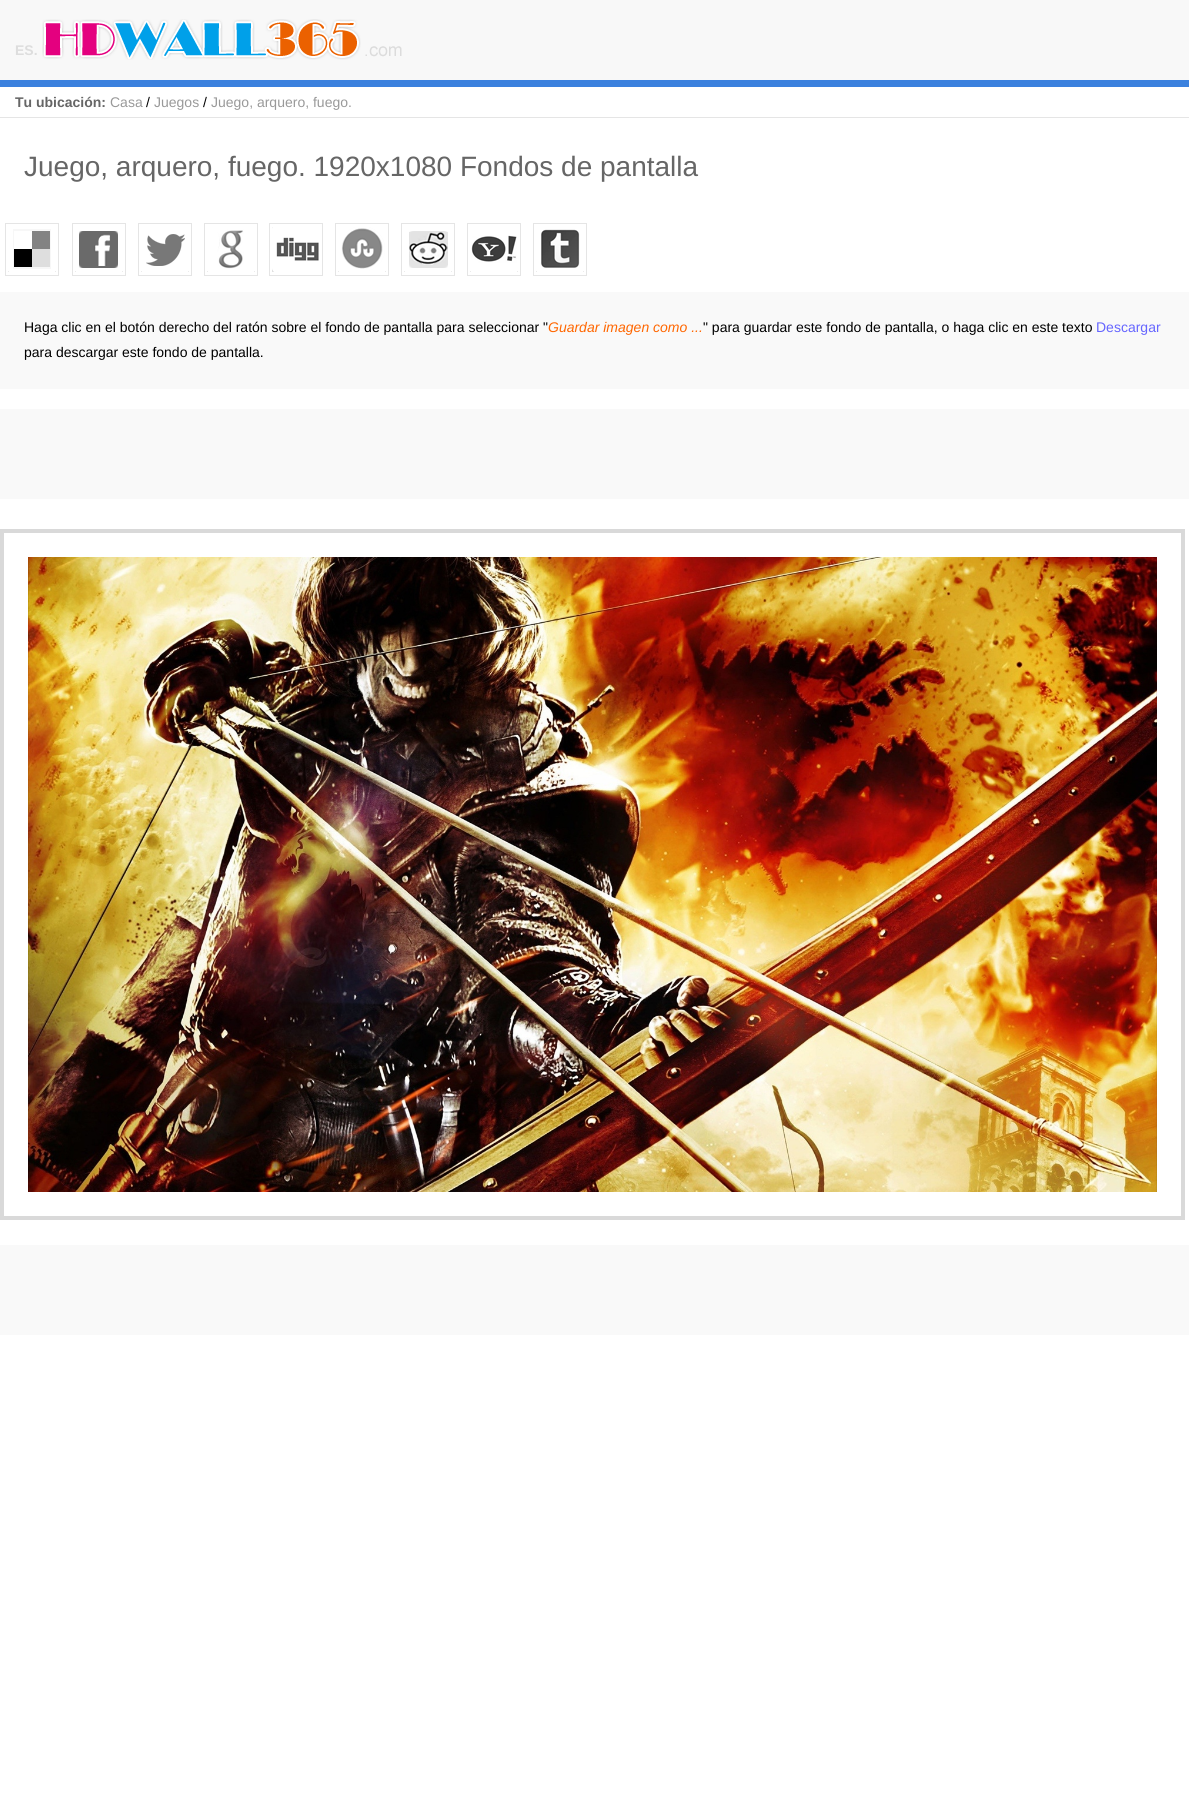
#include <cairo.h>
#include <math.h>
#include <stddef.h>


static void set_color(cairo_t *cr, unsigned color) {
    cairo_set_source_rgb(cr, (color >> 16) / 255.0, (color >> 8 & 255) / 255.0, (color & 255) / 255.0);
}

static void draw_text(cairo_t *cr, double x, double y, const char *s, const char *family, double size, int italic, int bold, unsigned color) {
    cairo_select_font_face(cr, family, italic ? CAIRO_FONT_SLANT_ITALIC : CAIRO_FONT_SLANT_NORMAL,
        bold ? CAIRO_FONT_WEIGHT_BOLD : CAIRO_FONT_WEIGHT_NORMAL);
    cairo_set_font_size(cr, size);
    set_color(cr, color);
    cairo_move_to(cr, x, y);
    cairo_show_text(cr, s);
}

static void fill_rect(cairo_t *cr, double x, double y, double w, double h, unsigned color) {
    set_color(cr, color);
    cairo_rectangle(cr, x, y, w, h);
    cairo_fill(cr);
}

static void draw_image(cairo_t *cr, const char *path, double x, double y, double w, double h) {
    cairo_surface_t *image = cairo_image_surface_create_from_png(path);
    cairo_save(cr);
    cairo_set_source_surface(cr, image, x, y);
    cairo_rectangle(cr, x, y, w, h);
    cairo_fill(cr);
    cairo_restore(cr);
    cairo_surface_destroy(image);
}

int main(void) {
    cairo_surface_t *surface = cairo_image_surface_create(CAIRO_FORMAT_RGB24, 1189, 1802);
    cairo_t *cr = cairo_create(surface);
    cairo_font_options_t *options = cairo_font_options_create();
    cairo_font_options_set_hint_metrics(options, CAIRO_HINT_METRICS_OFF);
    cairo_font_options_set_hint_style(options, CAIRO_HINT_STYLE_NONE);
    cairo_set_font_options(cr, options);
    cairo_set_miter_limit(cr, 4);
    set_color(cr, 0xFFFFFF);
    cairo_paint(cr);
    fill_rect(cr, 0, 0, 1189, 80, 0xF8F8F8);
    draw_text(cr, 15, 55, "ES.", "Liberation Sans", 14, 0, 1, 0xDDDDDD);
    draw_image(cr, "assets/img1.png", 42, 19, 360, 41);
    fill_rect(cr, 0, 80, 1189, 7, 0x3B81DE);
    fill_rect(cr, 0, 117, 1189, 1, 0xE5E5E5);
    draw_text(cr, 15, 107, "Tu ubicación:", "Liberation Sans", 14, 0, 1, 0x666666);
    draw_text(cr, 110, 107, "Casa", "Liberation Sans", 14, 0, 0, 0x999999);
    draw_text(cr, 146, 107, "/", "Liberation Sans", 14, 0, 0, 0x000000);
    draw_text(cr, 154, 107, "Juegos", "Liberation Sans", 14, 0, 0, 0x999999);
    draw_text(cr, 203, 107, "/", "Liberation Sans", 14, 0, 0, 0x000000);
    draw_text(cr, 211, 107, "Juego, arquero, fuego.", "Liberation Sans", 14, 0, 0, 0x999999);
    draw_text(cr, 24, 176, "Juego, arquero, fuego. 1920x1080 Fondos de pantalla", "Liberation Sans", 28, 0, 0, 0x666666);
    draw_image(cr, "assets/img2.png", 5, 223, 54, 53);
    draw_image(cr, "assets/img3.png", 72, 223, 54, 53);
    draw_image(cr, "assets/img4.png", 138, 223, 54, 53);
    draw_image(cr, "assets/img5.png", 204, 223, 54, 53);
    draw_image(cr, "assets/img6.png", 269, 223, 54, 53);
    draw_image(cr, "assets/img7.png", 335, 223, 54, 53);
    draw_image(cr, "assets/img8.png", 401, 223, 54, 53);
    draw_image(cr, "assets/img9.png", 467, 223, 54, 53);
    draw_image(cr, "assets/img10.png", 533, 223, 54, 53);
    fill_rect(cr, 0, 292, 1189, 97, 0xF9F9F9);
    draw_text(cr, 24, 332, "Haga clic en el botón derecho del ratón sobre el fondo de pantalla para seleccionar \"", "Liberation Sans", 14, 0, 0, 0x000000);
    draw_text(cr, 548, 332, "Guardar imagen como ...", "Liberation Sans", 14, 1, 0, 0xFF6600);
    draw_text(cr, 703, 332, "\" para guardar este fondo de pantalla, o haga clic en este texto", "Liberation Sans", 14, 0, 0, 0x000000);
    draw_text(cr, 1096, 332, "Descargar", "Liberation Sans", 14, 0, 0, 0x6666FF);
    draw_text(cr, 24, 357, "para descargar este fondo de pantalla.", "Liberation Sans", 14, 0, 0, 0x000000);
    fill_rect(cr, 0, 409, 1189, 90, 0xF9F9F9);
    cairo_rectangle(cr, 2, 531, 1181, 687);
    set_color(cr, 0xD9D9D9);
    cairo_set_line_width(cr, 4);
    cairo_stroke(cr);
    draw_image(cr, "assets/img11.png", 28, 557, 1129, 635);
    fill_rect(cr, 0, 1245, 1189, 90, 0xF9F9F9);
    cairo_surface_write_to_png(surface, "output.png");
    cairo_font_options_destroy(options);
    cairo_destroy(cr);
    cairo_surface_destroy(surface);
    return 0;
}
